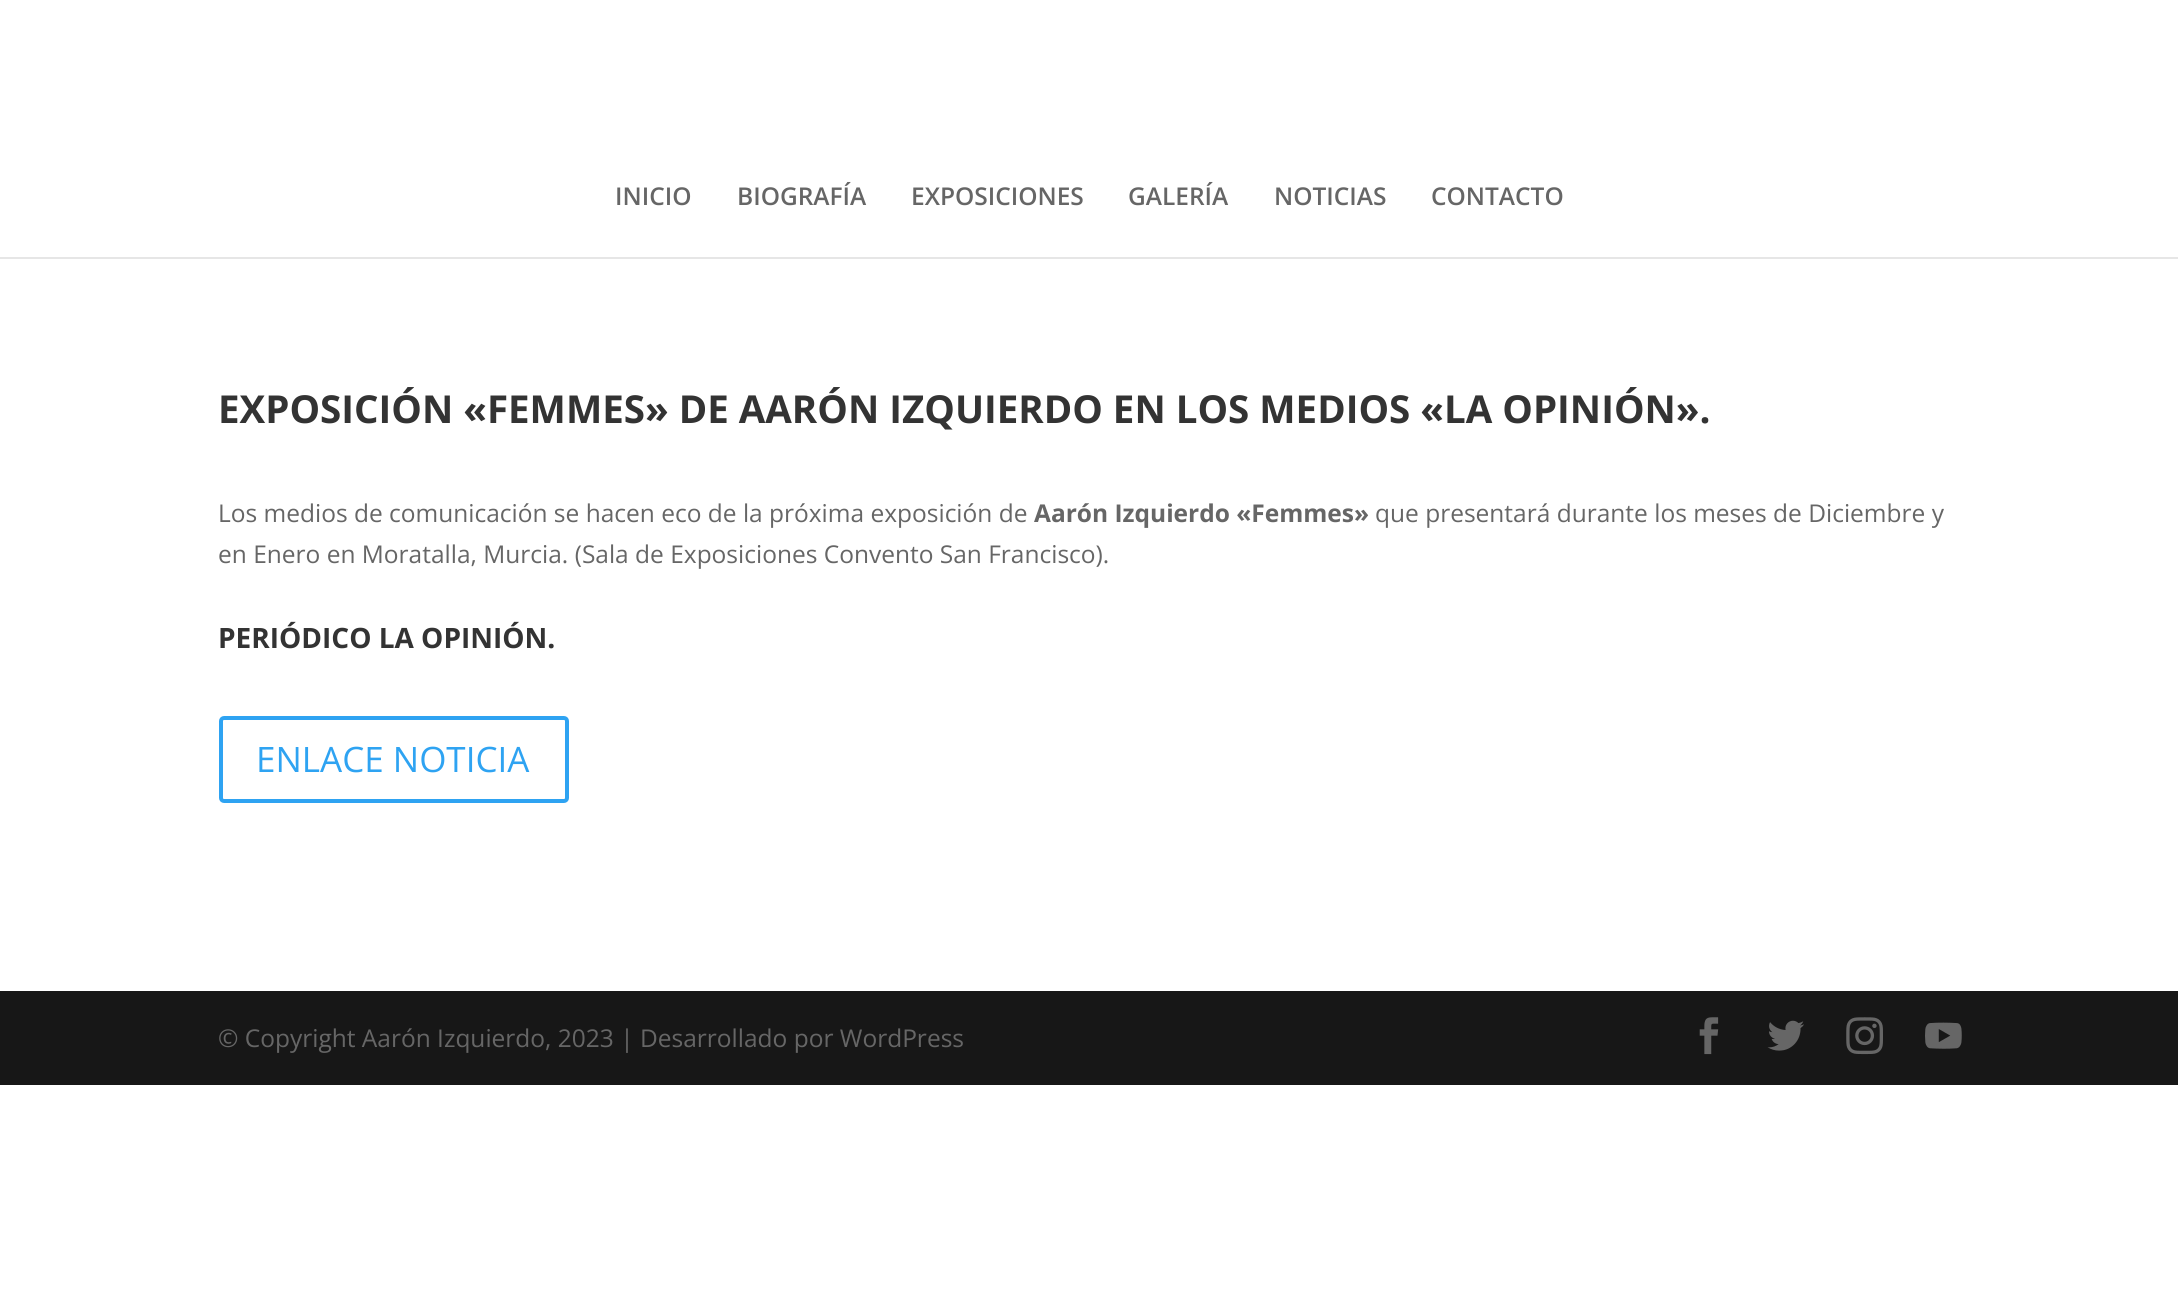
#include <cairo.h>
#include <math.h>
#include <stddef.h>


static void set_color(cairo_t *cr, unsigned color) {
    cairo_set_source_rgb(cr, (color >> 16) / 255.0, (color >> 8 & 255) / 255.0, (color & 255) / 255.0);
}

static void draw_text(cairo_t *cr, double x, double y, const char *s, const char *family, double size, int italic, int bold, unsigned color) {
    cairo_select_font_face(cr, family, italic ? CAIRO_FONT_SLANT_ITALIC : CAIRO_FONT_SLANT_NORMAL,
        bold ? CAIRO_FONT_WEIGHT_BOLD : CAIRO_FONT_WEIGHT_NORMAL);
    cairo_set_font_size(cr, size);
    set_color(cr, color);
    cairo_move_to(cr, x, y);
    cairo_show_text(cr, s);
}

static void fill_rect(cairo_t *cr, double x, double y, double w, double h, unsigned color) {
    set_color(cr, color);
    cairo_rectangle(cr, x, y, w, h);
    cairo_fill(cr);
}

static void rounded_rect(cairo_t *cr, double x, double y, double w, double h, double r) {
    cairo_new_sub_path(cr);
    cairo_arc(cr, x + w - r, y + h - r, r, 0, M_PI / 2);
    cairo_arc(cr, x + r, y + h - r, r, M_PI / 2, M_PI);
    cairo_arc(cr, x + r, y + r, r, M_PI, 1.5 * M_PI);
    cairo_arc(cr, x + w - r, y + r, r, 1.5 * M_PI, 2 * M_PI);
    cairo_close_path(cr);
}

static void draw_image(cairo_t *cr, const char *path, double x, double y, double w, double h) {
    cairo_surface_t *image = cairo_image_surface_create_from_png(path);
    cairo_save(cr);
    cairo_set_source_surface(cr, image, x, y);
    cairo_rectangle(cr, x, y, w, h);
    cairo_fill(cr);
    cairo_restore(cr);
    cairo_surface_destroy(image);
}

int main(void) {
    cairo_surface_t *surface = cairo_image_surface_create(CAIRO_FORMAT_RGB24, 2178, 1311);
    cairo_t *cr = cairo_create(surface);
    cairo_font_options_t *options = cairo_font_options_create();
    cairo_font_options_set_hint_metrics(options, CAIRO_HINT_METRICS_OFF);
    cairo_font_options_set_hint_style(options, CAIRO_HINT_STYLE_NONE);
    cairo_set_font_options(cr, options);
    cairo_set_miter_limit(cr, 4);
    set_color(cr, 0xFFFFFF);
    cairo_paint(cr);
    set_color(cr, 0xE6E6E6);
    cairo_new_path(cr);
    cairo_move_to(cr, 0, 257);
    cairo_line_to(cr, 0, 259);
    cairo_line_to(cr, 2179, 259);
    cairo_line_to(cr, 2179, 2);
    cairo_line_to(cr, 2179, 257);
    cairo_close_path(cr);
    cairo_fill(cr);
    draw_text(cr, 615, 205, "INICIO", "Open Sans SemiBold", 24.5, 0, 0, 0x666666);
    draw_text(cr, 737, 205, "BIOGRAFÍA", "Open Sans SemiBold", 24.5, 0, 0, 0x666666);
    draw_text(cr, 911, 205, "EXPOSICIONES", "Open Sans SemiBold", 24.5, 0, 0, 0x666666);
    draw_text(cr, 1128, 205, "GALERÍA", "Open Sans SemiBold", 24.5, 0, 0, 0x666666);
    draw_text(cr, 1274, 205, "NOTICIAS", "Open Sans SemiBold", 24.5, 0, 0, 0x666666);
    draw_text(cr, 1431, 205, "CONTACTO", "Open Sans SemiBold", 24.5, 0, 0, 0x666666);
    draw_text(cr, 218, 423, "EXPOSICIÓN «FEMMES» DE AARÓN IZQUIERDO EN LOS MEDIOS «LA OPINIÓN».", "Open Sans", 38.5, 0, 1, 0x333333);
    draw_text(cr, 218, 522, "Los medios de comunicación se hacen eco de la próxima exposición de", "Open Sans", 24.5, 0, 0, 0x666666);
    draw_text(cr, 1034, 522, "Aarón Izquierdo «Femmes»", "Open Sans", 24.5, 0, 1, 0x666666);
    draw_text(cr, 1375, 522, "que presentará durante los meses de Diciembre y", "Open Sans", 24.5, 0, 0, 0x666666);
    draw_text(cr, 218, 563, "en Enero en Moratalla, Murcia. (Sala de Exposiciones Convento San Francisco).", "Open Sans", 24.5, 0, 0, 0x666666);
    draw_text(cr, 218, 648, "PERIÓDICO LA OPINIÓN.", "Open Sans", 28, 0, 1, 0x333333);
    rounded_rect(cr, 221, 718, 346, 83, 3);
    set_color(cr, 0x2EA3F2);
    cairo_set_line_width(cr, 4);
    cairo_stroke(cr);
    draw_text(cr, 256, 772, "ENLACE NOTICIA", "Open Sans", 35, 0, 0, 0x2EA3F2);
    fill_rect(cr, 0, 991, 2178, 94, 0x171717);
    draw_text(cr, 218, 1047, "© Copyright Aarón Izquierdo, 2023 | Desarrollado por WordPress", "Open Sans", 24.5, 0, 0, 0x666666);
    draw_image(cr, "assets/img1.png", 1699, 1017, 20, 38);
    draw_image(cr, "assets/img2.png", 1767, 1020, 37, 31);
    draw_image(cr, "assets/img3.png", 1846, 1017, 37, 38);
    draw_image(cr, "assets/img4.png", 1925, 1022, 37, 27);
    cairo_surface_write_to_png(surface, "output.png");
    cairo_font_options_destroy(options);
    cairo_destroy(cr);
    cairo_surface_destroy(surface);
    return 0;
}
